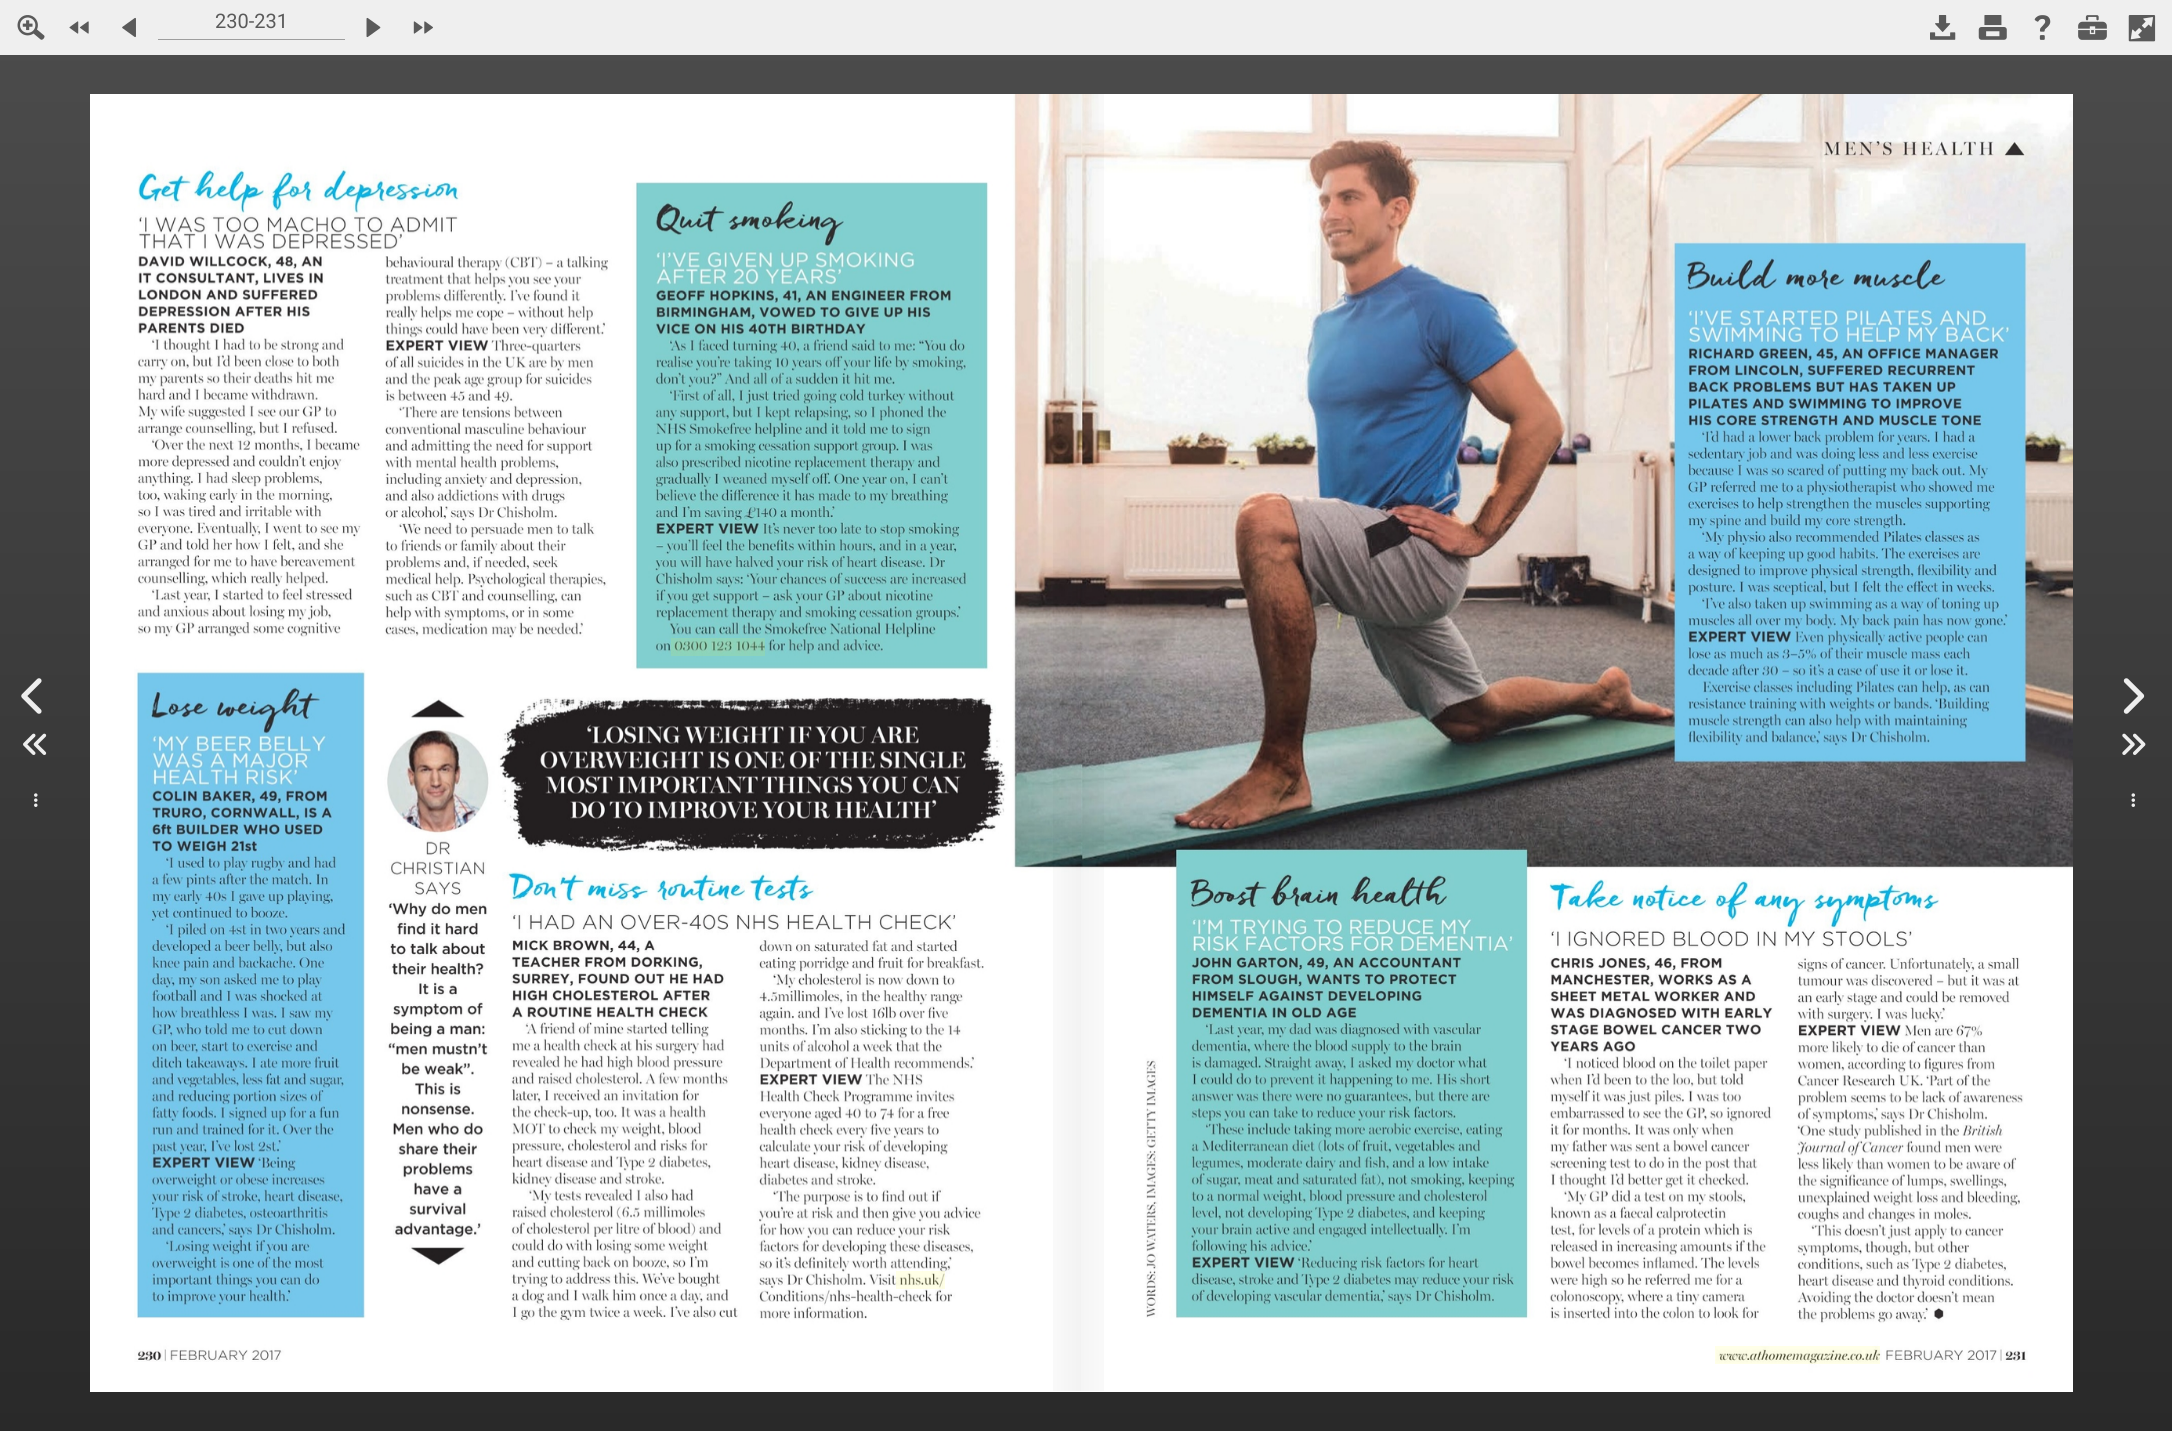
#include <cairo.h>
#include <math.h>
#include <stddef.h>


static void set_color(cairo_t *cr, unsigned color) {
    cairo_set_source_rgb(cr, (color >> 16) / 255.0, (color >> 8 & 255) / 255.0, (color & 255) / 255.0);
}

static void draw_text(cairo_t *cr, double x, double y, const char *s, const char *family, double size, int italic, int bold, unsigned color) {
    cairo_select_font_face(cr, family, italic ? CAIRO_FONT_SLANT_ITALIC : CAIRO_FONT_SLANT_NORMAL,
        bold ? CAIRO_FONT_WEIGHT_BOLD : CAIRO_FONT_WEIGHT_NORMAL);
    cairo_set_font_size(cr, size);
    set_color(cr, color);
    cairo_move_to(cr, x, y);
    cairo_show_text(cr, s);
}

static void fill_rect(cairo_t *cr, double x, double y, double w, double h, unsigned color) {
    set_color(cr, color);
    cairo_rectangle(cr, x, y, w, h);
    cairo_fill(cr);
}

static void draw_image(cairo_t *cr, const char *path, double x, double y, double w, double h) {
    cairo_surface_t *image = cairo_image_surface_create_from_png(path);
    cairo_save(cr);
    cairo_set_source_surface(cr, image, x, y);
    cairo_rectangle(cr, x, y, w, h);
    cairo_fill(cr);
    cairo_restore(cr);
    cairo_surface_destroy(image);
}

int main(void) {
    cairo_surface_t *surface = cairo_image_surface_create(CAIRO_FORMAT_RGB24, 2172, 1431);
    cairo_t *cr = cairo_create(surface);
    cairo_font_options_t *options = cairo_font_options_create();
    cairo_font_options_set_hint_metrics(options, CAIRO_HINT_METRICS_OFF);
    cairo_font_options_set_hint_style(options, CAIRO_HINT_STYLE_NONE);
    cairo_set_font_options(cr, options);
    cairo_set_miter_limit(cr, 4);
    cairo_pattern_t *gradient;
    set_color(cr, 0xFFFFFF);
    cairo_paint(cr);
    gradient = cairo_pattern_create_linear(1086, 0, 1086, 1431);
    cairo_pattern_add_color_stop_rgba(gradient, 0, 0.298, 0.298, 0.298, 1);
    cairo_pattern_add_color_stop_rgba(gradient, 1, 0.161, 0.161, 0.161, 1);
    cairo_set_source(cr, gradient);
    cairo_pattern_destroy(gradient);
    cairo_rectangle(cr, 0, 55, 2172, 1376);
    cairo_fill(cr);
    fill_rect(cr, 0, 0, 2172, 55, 0xEFEFEF);
    draw_image(cr, "assets/img1.png", 17, 15, 28, 25);
    draw_image(cr, "assets/img2.png", 69, 21, 20, 13);
    draw_image(cr, "assets/img3.png", 122, 17, 14, 21);
    fill_rect(cr, 158, 39, 187, 1, 0x9E9E9E);
    draw_text(cr, 215, 28, "230-231", "Roboto", 20, 0, 0, 0x5A5A5A);
    draw_image(cr, "assets/img4.png", 366, 17, 15, 21);
    draw_image(cr, "assets/img5.png", 413, 21, 20, 13);
    draw_image(cr, "assets/img6.png", 1930, 15, 26, 25);
    draw_image(cr, "assets/img7.png", 1978, 15, 29, 25);
    draw_image(cr, "assets/img8.png", 2034, 15, 17, 25);
    draw_image(cr, "assets/img9.png", 2078, 15, 29, 25);
    draw_image(cr, "assets/img10.png", 2128, 15, 28, 27);
    draw_image(cr, "assets/img11.png", 21, 678, 21, 36);
    draw_image(cr, "assets/img12.png", 23, 733, 24, 22);
    draw_image(cr, "assets/img13.png", 34, 793, 4, 14);
    fill_rect(cr, 90, 94, 991, 1297, 0xFFFFFF);
    draw_image(cr, "assets/img14.png", 134, 94, 1, 1268);
    draw_image(cr, "assets/img15.png", 135, 94, 946, 1268);
    cairo_set_source_rgba(cr, 1, 1, 0, 0.1);
    cairo_rectangle(cr, 671, 638, 94, 18);
    cairo_fill(cr);
    gradient = cairo_pattern_create_linear(90, 744, 1081, 744);
    cairo_pattern_add_color_stop_rgba(gradient, 0.95, 0, 0, 0, 0);
    cairo_pattern_add_color_stop_rgba(gradient, 1, 0, 0, 0, 0.05);
    cairo_set_source(cr, gradient);
    cairo_pattern_destroy(gradient);
    cairo_rectangle(cr, 1053, 94, 28, 1297);
    cairo_fill(cr);
    cairo_set_source_rgba(cr, 1, 1, 0, 0.1);
    cairo_rectangle(cr, 896, 1271, 49, 18);
    cairo_fill(cr);
    draw_image(cr, "assets/img16.png", 1081, 94, 992, 1271);
    draw_image(cr, "assets/img17.png", 1081, 1365, 992, 27);
    gradient = cairo_pattern_create_linear(2073, 744, 1081, 744);
    cairo_pattern_add_color_stop_rgba(gradient, 0.95, 0, 0, 0, 0);
    cairo_pattern_add_color_stop_rgba(gradient, 1, 0, 0, 0, 0.04);
    cairo_set_source(cr, gradient);
    cairo_pattern_destroy(gradient);
    cairo_rectangle(cr, 1081, 94, 23, 1297);
    cairo_fill(cr);
    cairo_set_source_rgba(cr, 1, 1, 0, 0.09);
    cairo_rectangle(cr, 1715, 1346, 165, 18);
    cairo_fill(cr);
    draw_image(cr, "assets/img18.png", 90, 1391, 991, 1);
    draw_image(cr, "assets/img19.png", 2123, 678, 22, 36);
    draw_image(cr, "assets/img20.png", 2122, 733, 24, 22);
    draw_image(cr, "assets/img21.png", 2131, 793, 4, 14);
    cairo_surface_write_to_png(surface, "output.png");
    cairo_font_options_destroy(options);
    cairo_destroy(cr);
    cairo_surface_destroy(surface);
    return 0;
}
